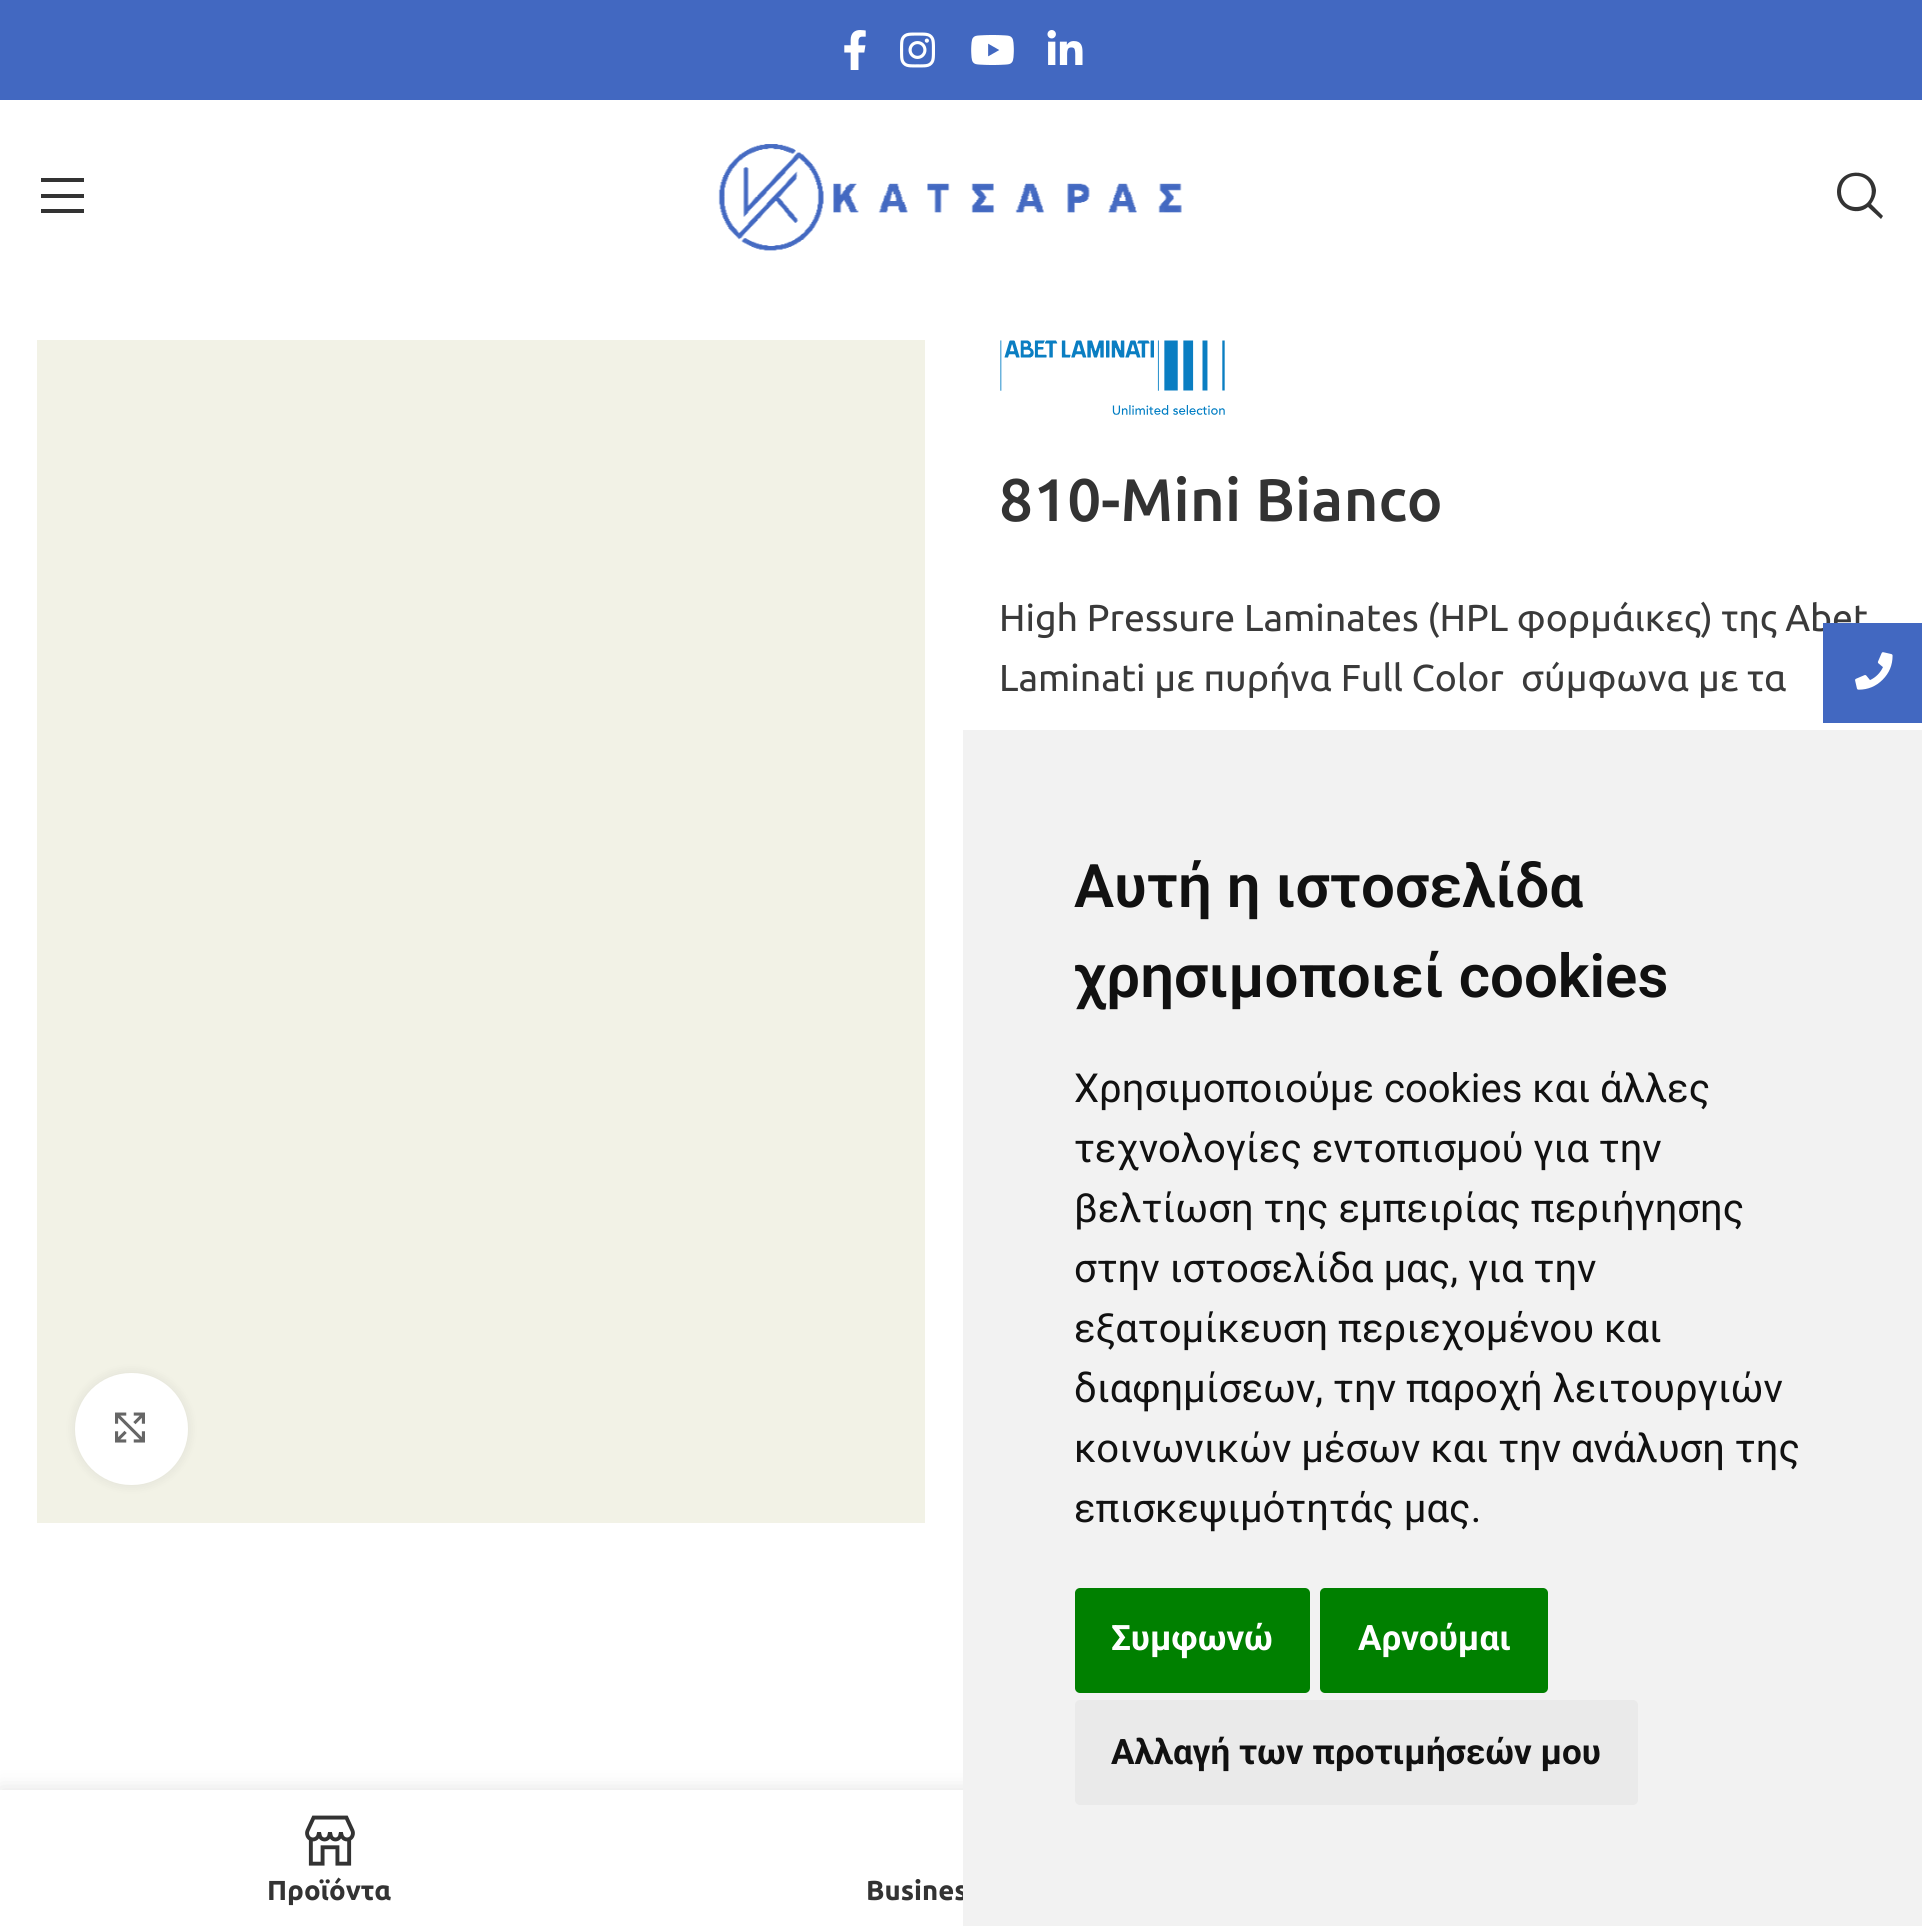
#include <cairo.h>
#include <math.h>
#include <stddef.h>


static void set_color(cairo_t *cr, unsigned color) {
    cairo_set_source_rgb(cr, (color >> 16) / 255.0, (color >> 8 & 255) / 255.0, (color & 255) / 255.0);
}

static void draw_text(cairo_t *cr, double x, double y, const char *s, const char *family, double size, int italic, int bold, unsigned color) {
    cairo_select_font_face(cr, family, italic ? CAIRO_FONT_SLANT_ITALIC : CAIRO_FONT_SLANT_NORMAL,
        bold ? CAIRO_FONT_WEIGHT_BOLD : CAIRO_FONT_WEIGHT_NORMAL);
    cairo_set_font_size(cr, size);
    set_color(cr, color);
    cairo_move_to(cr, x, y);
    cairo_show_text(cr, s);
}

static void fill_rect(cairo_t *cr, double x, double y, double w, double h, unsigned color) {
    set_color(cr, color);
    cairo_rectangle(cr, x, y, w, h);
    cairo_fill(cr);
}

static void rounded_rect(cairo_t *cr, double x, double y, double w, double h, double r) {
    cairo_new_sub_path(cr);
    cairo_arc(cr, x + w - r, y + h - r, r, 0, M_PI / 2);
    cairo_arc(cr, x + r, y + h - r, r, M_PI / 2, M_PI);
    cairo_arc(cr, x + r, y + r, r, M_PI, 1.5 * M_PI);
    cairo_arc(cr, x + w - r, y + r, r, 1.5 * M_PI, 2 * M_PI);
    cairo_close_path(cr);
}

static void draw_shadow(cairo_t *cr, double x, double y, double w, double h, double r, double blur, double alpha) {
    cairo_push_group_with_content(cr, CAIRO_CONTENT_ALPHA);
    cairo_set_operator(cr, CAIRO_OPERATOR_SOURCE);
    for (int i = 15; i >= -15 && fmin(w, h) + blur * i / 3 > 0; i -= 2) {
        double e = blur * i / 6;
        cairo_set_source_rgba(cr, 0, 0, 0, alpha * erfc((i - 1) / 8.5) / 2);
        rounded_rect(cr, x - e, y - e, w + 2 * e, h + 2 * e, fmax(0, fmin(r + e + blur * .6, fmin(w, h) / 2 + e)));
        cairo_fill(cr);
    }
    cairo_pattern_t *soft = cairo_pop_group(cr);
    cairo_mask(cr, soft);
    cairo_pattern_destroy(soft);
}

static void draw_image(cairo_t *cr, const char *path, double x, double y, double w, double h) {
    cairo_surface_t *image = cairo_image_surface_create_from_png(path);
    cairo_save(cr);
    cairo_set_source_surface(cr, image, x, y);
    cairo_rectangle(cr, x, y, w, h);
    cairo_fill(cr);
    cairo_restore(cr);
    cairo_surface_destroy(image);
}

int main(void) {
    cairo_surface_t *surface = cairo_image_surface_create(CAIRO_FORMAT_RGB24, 1922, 1926);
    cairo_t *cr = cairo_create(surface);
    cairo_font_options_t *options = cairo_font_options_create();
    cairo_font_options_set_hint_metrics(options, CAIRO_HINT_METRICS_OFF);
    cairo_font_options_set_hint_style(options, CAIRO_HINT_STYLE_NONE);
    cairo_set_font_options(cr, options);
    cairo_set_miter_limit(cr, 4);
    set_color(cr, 0xFFFFFF);
    cairo_paint(cr);
    fill_rect(cr, 0, 0, 1922, 100, 0x4268C1);
    draw_image(cr, "assets/img1.png", 844, 30, 22, 40);
    draw_image(cr, "assets/img2.png", 900, 32, 35, 36);
    draw_image(cr, "assets/img3.png", 971, 35, 43, 30);
    draw_image(cr, "assets/img4.png", 1047, 30, 36, 35);
    set_color(cr, 0x333333);
    cairo_new_path(cr);
    cairo_move_to(cr, 41, 182);
    cairo_line_to(cr, 84, 182);
    cairo_line_to(cr, 84, 178);
    cairo_line_to(cr, 41, 178);
    cairo_close_path(cr);
    cairo_move_to(cr, 41, 198);
    cairo_line_to(cr, 84, 198);
    cairo_line_to(cr, 84, 194);
    cairo_line_to(cr, 41, 194);
    cairo_close_path(cr);
    cairo_move_to(cr, 41, 213);
    cairo_line_to(cr, 84, 213);
    cairo_line_to(cr, 84, 209);
    cairo_line_to(cr, 41, 209);
    cairo_close_path(cr);
    cairo_fill(cr);
    draw_image(cr, "assets/img5.png", 718, 144, 464, 107);
    cairo_new_path(cr);
    cairo_move_to(cr, 1837, 192);
    cairo_curve_to(cr, 1837, 208, 1856, 217, 1868, 207);
    cairo_line_to(cr, 1881, 219);
    cairo_line_to(cr, 1883, 216);
    cairo_line_to(cr, 1871, 204);
    cairo_curve_to(cr, 1874, 200, 1876, 195, 1876, 190);
    cairo_curve_to(cr, 1873, 166, 1837, 167, 1837, 192);
    cairo_close_path(cr);
    cairo_move_to(cr, 1856, 207);
    cairo_curve_to(cr, 1836, 207, 1836, 176, 1856, 176);
    cairo_curve_to(cr, 1877, 176, 1877, 207, 1856, 207);
    cairo_close_path(cr);
    cairo_fill(cr);
    fill_rect(cr, 37, 340, 888, 1183, 0xF2F2E6);
    set_color(cr, 0x000000);
    draw_shadow(cr, 75, 1373, 113, 112, 56, 6, 0.08);
    set_color(cr, 0xFFFFFF);
    rounded_rect(cr, 75, 1373, 113, 112, 56);
    cairo_fill(cr);
    draw_image(cr, "assets/img6.png", 115, 1412, 30, 31);
    draw_image(cr, "assets/img7.png", 1000, 340, 225, 75);
    draw_text(cr, 999, 521, "810-Mini Bianco", "Ubuntu Medium", 60, 0, 0, 0x333333);
    draw_text(cr, 999, 631, "High Pressure Laminates (HPL φορμάικες) της Abet", "Ubuntu", 37.5, 0, 0, 0x3A3A3A);
    draw_text(cr, 999, 691, "Laminati με πυρήνα Full Color  σύμφωνα με τα", "Ubuntu", 37.5, 0, 0, 0x3A3A3A);
    fill_rect(cr, 1823, 623, 99, 100, 0x4268C1);
    draw_image(cr, "assets/img8.png", 1855, 652, 38, 38);
    set_color(cr, 0x000000);
    draw_shadow(cr, 0, 1790, 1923, 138, 0, 11, 0.12);
    fill_rect(cr, 0, 1790, 963, 136, 0xFFFFFF);
    draw_text(cr, 866, 1900, "Busines", "Ubuntu", 27.5, 0, 1, 0x333333);
    fill_rect(cr, 963, 730, 959, 1196, 0xF2F2F2);
    draw_text(cr, 1074, 907, "Αυτή η ιστοσελίδα", "Roboto SemiBold", 60, 0, 0, 0x111111);
    draw_text(cr, 1074, 997, "χρησιμοποιεί cookies", "Roboto SemiBold", 60, 0, 0, 0x111111);
    draw_text(cr, 1074, 1102, "Χρησιμοποιούμε cookies και άλλες", "Roboto", 40, 0, 0, 0x111111);
    draw_text(cr, 1074, 1162, "τεχνολογίες εντοπισμού για την", "Roboto", 40, 0, 0, 0x111111);
    draw_text(cr, 1074, 1222, "βελτίωση της εμπειρίας περιήγησης", "Roboto", 40, 0, 0, 0x111111);
    draw_text(cr, 1074, 1282, "στην ιστοσελίδα μας, για την", "Roboto", 40, 0, 0, 0x111111);
    draw_text(cr, 1074, 1342, "εξατομίκευση περιεχομένου και", "Roboto", 40, 0, 0, 0x111111);
    draw_text(cr, 1074, 1402, "διαφημίσεων, την παροχή λειτουργιών", "Roboto", 40, 0, 0, 0x111111);
    draw_text(cr, 1074, 1462, "κοινωνικών μέσων και την ανάλυση της", "Roboto", 40, 0, 0, 0x111111);
    draw_text(cr, 1074, 1522, "επισκεψιμότητάς μας.", "Roboto", 40, 0, 0, 0x111111);
    set_color(cr, 0x008000);
    rounded_rect(cr, 1075, 1588, 235, 105, 5);
    cairo_fill(cr);
    draw_text(cr, 1111, 1650, "Συμφωνώ", "Roboto", 35, 0, 1, 0xFFFFFF);
    set_color(cr, 0x008000);
    rounded_rect(cr, 1320, 1588, 228, 105, 5);
    cairo_fill(cr);
    draw_text(cr, 1358, 1650, "Αρνούμαι", "Roboto", 35, 0, 1, 0xFFFFFF);
    set_color(cr, 0xEAEAEA);
    rounded_rect(cr, 1075, 1700, 563, 105, 5);
    cairo_fill(cr);
    draw_text(cr, 1111, 1764, "Αλλαγή των προτιμήσεών μου", "Roboto", 35, 0, 1, 0x111111);
    draw_image(cr, "assets/img9.png", 305, 1815, 50, 51);
    draw_text(cr, 267, 1900, "Προϊόντα", "Ubuntu", 27.5, 0, 1, 0x333333);
    cairo_surface_write_to_png(surface, "output.png");
    cairo_font_options_destroy(options);
    cairo_destroy(cr);
    cairo_surface_destroy(surface);
    return 0;
}
